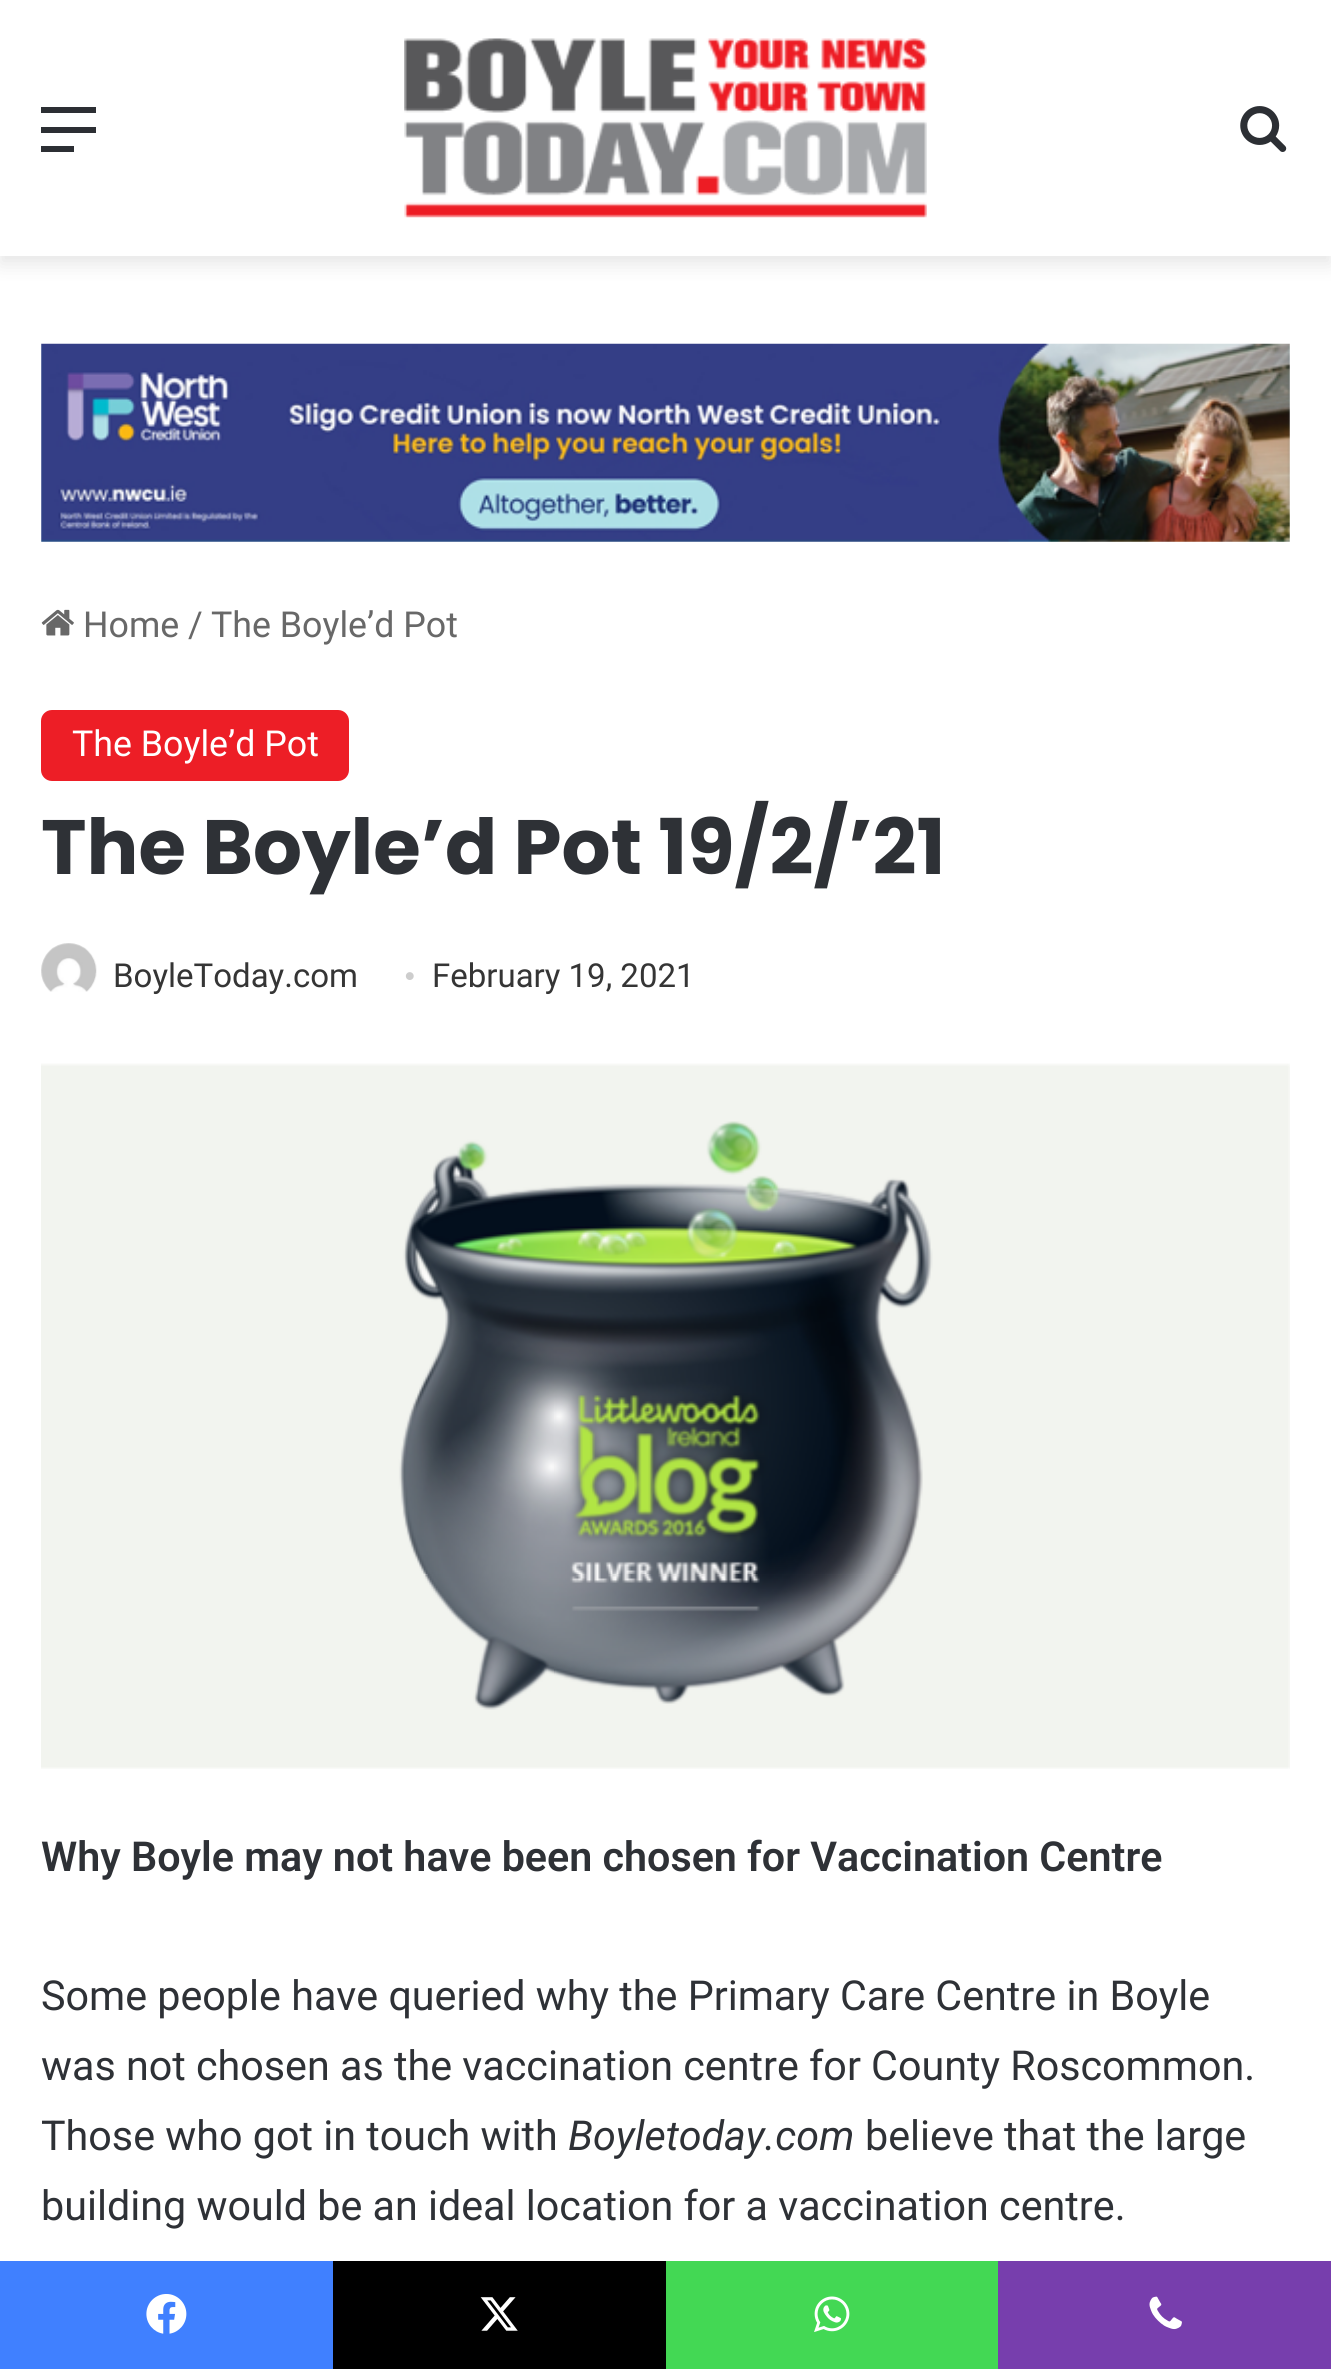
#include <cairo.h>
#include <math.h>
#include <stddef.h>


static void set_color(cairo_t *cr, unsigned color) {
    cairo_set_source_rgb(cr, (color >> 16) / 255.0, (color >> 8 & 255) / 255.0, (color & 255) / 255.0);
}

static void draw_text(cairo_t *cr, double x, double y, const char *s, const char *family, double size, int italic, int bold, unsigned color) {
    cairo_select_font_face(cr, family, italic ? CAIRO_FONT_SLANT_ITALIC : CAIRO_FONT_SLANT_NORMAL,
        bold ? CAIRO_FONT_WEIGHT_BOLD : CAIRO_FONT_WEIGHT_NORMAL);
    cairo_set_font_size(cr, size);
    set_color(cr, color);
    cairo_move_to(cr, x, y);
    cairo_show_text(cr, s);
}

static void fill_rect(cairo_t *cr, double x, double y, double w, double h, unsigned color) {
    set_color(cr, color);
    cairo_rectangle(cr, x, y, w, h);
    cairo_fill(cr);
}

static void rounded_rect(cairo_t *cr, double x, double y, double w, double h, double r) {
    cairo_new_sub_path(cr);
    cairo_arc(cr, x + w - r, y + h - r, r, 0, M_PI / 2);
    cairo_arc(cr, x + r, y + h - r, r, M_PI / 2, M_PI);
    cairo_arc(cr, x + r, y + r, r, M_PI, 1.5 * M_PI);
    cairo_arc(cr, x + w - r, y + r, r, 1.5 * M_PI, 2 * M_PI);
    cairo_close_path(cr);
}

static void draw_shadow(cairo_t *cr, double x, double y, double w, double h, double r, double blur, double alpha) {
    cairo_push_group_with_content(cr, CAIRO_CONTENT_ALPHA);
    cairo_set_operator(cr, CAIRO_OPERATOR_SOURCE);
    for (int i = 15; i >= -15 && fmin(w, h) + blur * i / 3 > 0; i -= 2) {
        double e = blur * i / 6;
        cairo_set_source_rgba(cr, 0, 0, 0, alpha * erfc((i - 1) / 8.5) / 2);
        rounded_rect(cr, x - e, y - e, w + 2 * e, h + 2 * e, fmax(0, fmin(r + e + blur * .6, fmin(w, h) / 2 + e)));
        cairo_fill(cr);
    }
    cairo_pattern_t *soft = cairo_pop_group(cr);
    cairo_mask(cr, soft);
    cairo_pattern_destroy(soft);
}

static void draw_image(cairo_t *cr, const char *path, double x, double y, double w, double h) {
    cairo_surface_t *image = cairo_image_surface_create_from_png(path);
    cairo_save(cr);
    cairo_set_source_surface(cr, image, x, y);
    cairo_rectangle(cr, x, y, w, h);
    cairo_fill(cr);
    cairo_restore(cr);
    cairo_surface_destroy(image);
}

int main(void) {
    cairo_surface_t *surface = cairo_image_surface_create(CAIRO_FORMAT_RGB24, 1331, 2369);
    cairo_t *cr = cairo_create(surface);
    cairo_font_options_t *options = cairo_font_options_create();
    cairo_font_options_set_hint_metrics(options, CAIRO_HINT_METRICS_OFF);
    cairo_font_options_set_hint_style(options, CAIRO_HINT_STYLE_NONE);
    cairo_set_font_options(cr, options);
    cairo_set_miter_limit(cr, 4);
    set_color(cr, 0xFFFFFF);
    cairo_paint(cr);
    set_color(cr, 0x000000);
    draw_shadow(cr, 0, 8, 1331, 256, 0, 9.5, 0.1);
    fill_rect(cr, 0, 0, 1331, 256, 0xFFFFFF);
    fill_rect(cr, 41, 127, 55, 6, 0x2C2F34);
    fill_rect(cr, 41, 107, 55, 6, 0x2C2F34);
    fill_rect(cr, 41, 146, 33, 6, 0x2C2F34);
    draw_image(cr, "assets/img1.png", 404, 38, 523, 180);
    draw_image(cr, "assets/img2.png", 1240, 106, 47, 46);
    draw_image(cr, "assets/img3.png", 41, 343, 1249, 199);
    draw_image(cr, "assets/img4.png", 41, 609, 33, 27);
    draw_text(cr, 83, 637, "Home", "Roboto", 35.75, 0, 0, 0x686868);
    draw_text(cr, 188, 637, "/", "Roboto", 35.75, 0, 0, 0x686868);
    draw_text(cr, 211, 637, "The Boyle’d Pot", "Roboto", 35.75, 0, 0, 0x686868);
    set_color(cr, 0xED1E26);
    rounded_rect(cr, 41, 710, 308, 71, 11);
    cairo_fill(cr);
    draw_text(cr, 72, 756, "The Boyle’d Pot", "Roboto", 35.75, 0, 0, 0xFFFFFF);
    draw_text(cr, 41, 874, "The Boyle’d Pot 19/2/’21", "Poppins", 77, 0, 1, 0x2E3136);
    draw_image(cr, "assets/img5.png", 41, 943, 56, 49);
    draw_text(cr, 113, 987, "BoyleToday.com", "Roboto", 33, 0, 0, 0x353535);
    draw_text(cr, 404, 987, "•", "Liberation Serif", 33, 0, 0, 0xCDCDCD);
    draw_text(cr, 432, 987, "February 19, 2021", "Roboto", 33, 0, 0, 0x353535);
    draw_image(cr, "assets/img6.png", 41, 1063, 1249, 706);
    draw_text(cr, 41, 1871, "Why Boyle may not have been chosen for Vaccination Centre", "Roboto SemiBold", 41.25, 0, 0, 0x2E3136);
    draw_text(cr, 41, 2010, "Some people have queried why the Primary Care Centre in Boyle", "Roboto", 41.25, 0, 0, 0x2E3136);
    draw_text(cr, 41, 2080, "was not chosen as the vaccination centre for County Roscommon.", "Roboto", 41.25, 0, 0, 0x2E3136);
    draw_text(cr, 41, 2150, "Those who got in touch with", "Roboto", 41.25, 0, 0, 0x2E3136);
    draw_text(cr, 568, 2150, "Boyletoday.com", "Roboto", 41.25, 1, 0, 0x2E3136);
    draw_text(cr, 865, 2150, "believe that the large", "Roboto", 41.25, 0, 0, 0x2E3136);
    draw_text(cr, 41, 2220, "building would be an ideal location for a vaccination centre.", "Roboto", 41.25, 0, 0, 0x2E3136);
    fill_rect(cr, 0, 2261, 333, 108, 0x4080FF);
    draw_image(cr, "assets/img7.png", 146, 2294, 41, 40);
    fill_rect(cr, 333, 2261, 333, 108, 0x000000);
    draw_image(cr, "assets/img8.png", 480, 2297, 38, 34);
    fill_rect(cr, 666, 2261, 332, 108, 0x43D854);
    draw_image(cr, "assets/img9.png", 814, 2296, 36, 36);
    fill_rect(cr, 998, 2261, 333, 108, 0x773EAD);
    draw_image(cr, "assets/img10.png", 1149, 2296, 33, 34);
    cairo_surface_write_to_png(surface, "output.png");
    cairo_font_options_destroy(options);
    cairo_destroy(cr);
    cairo_surface_destroy(surface);
    return 0;
}
